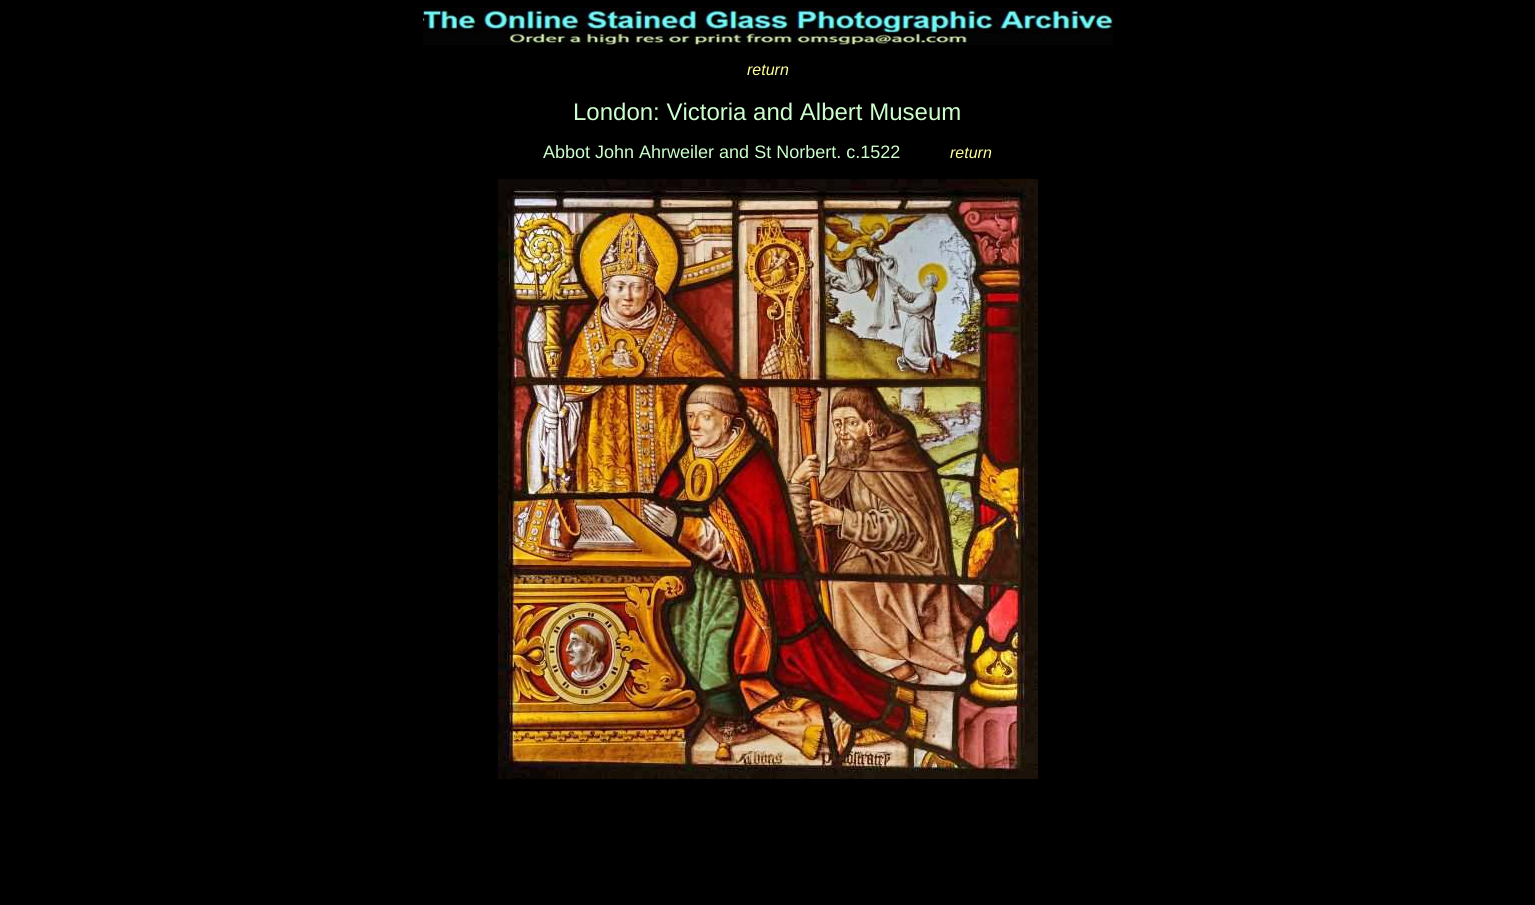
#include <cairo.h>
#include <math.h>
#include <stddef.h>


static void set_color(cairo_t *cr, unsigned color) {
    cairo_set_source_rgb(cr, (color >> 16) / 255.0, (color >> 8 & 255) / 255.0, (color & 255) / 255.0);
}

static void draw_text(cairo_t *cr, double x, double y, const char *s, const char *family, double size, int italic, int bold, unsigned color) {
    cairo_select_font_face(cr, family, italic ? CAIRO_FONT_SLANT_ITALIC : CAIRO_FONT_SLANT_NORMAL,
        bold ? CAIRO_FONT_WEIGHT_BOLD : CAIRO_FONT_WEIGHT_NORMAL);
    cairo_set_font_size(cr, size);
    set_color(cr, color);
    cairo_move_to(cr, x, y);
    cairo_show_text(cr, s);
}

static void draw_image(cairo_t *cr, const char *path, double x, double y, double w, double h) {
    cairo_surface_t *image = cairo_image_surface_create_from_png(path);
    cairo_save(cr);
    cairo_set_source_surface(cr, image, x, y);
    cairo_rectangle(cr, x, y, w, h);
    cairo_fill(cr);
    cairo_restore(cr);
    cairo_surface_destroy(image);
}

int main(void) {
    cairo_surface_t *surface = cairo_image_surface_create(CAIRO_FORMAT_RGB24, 1535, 905);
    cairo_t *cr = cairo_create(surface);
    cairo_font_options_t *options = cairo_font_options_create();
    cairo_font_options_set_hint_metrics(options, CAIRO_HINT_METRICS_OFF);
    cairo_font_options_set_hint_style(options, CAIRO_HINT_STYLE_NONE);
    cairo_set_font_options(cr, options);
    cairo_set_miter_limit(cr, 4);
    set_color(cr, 0x000000);
    cairo_paint(cr);
    draw_image(cr, "assets/img1.png", 423, 8, 690, 37);
    draw_text(cr, 747, 75, "return", "Liberation Sans", 16, 1, 0, 0xFFFF99);
    draw_text(cr, 573, 120, "London: Victoria and Albert Museum", "Liberation Sans", 24, 0, 0, 0xCCFFCC);
    draw_text(cr, 543, 158, "Abbot John Ahrweiler and St Norbert. c.1522", "Liberation Sans", 18, 0, 0, 0xCCFFCC);
    draw_text(cr, 950, 158, "return", "Liberation Sans", 16, 1, 0, 0xFFFF99);
    draw_image(cr, "assets/img2.png", 498, 179, 540, 600);
    cairo_surface_write_to_png(surface, "output.png");
    cairo_font_options_destroy(options);
    cairo_destroy(cr);
    cairo_surface_destroy(surface);
    return 0;
}
